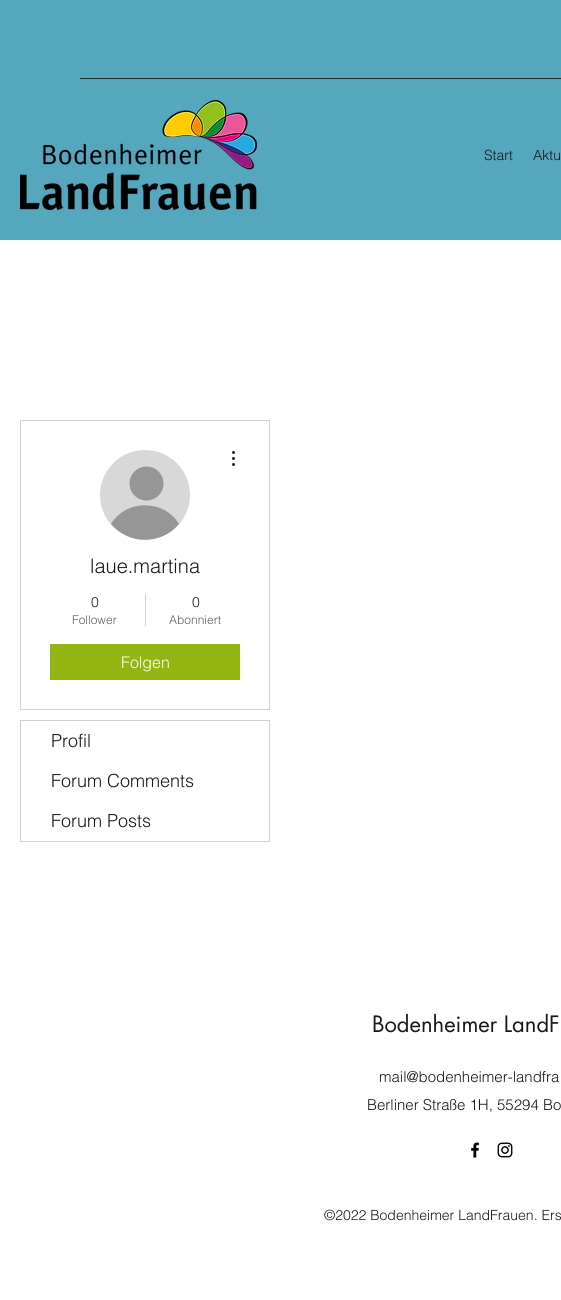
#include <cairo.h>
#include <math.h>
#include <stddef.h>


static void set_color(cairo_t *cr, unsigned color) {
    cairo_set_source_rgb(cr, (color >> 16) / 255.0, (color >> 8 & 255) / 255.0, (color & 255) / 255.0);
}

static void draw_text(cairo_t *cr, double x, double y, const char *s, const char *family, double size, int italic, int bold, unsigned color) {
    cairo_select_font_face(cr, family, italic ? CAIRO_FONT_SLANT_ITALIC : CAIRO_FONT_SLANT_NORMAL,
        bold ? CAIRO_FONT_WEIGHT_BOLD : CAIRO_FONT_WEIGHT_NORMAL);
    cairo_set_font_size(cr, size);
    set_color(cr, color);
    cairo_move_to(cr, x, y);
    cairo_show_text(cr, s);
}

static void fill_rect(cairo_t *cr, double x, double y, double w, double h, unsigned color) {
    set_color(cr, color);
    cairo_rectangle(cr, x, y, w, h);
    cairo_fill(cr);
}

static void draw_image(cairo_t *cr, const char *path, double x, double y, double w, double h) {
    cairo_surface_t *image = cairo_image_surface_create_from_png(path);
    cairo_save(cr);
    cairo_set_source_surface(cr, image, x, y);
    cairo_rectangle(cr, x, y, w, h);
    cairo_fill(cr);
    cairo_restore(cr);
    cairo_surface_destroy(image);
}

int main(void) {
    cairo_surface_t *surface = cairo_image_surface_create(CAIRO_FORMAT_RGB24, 561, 1300);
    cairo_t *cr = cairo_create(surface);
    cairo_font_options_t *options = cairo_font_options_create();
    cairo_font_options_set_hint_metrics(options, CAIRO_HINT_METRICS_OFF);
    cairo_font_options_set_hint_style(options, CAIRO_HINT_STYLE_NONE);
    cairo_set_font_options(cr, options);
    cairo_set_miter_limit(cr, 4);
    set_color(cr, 0xFFFFFF);
    cairo_paint(cr);
    fill_rect(cr, 0, 0, 561, 240, 0x55A7BE);
    fill_rect(cr, 80, 78, 481, 1, 0x212D31);
    draw_image(cr, "assets/img1.png", 20, 100, 237, 110);
    draw_text(cr, 484, 160, "Start", "helvetica Light", 14, 0, 0, 0x181818);
    draw_text(cr, 533, 160, "Aktu", "helvetica Light", 14, 0, 0, 0x181818);
    cairo_rectangle(cr, 20.5, 420.5, 249, 289);
    set_color(cr, 0xD1D1D1);
    cairo_set_line_width(cr, 1);
    cairo_stroke(cr);
    set_color(cr, 0xD8D8D8);
    cairo_arc(cr, 145, 495, 45, 0, 2 * M_PI);
    cairo_fill(cr);
    set_color(cr, 0x969696);
    cairo_arc(cr, 146.5, 483.5, 17, 0, 2 * M_PI);
    cairo_fill(cr);
    cairo_new_path(cr);
    cairo_move_to(cr, 179, 524);
    cairo_curve_to(cr, 161, 545, 129, 545, 111, 524);
    cairo_curve_to(cr, 126, 499, 164, 499, 179, 524);
    cairo_close_path(cr);
    cairo_fill(cr);
    draw_image(cr, "assets/img2.png", 232, 451, 3, 15);
    draw_text(cr, 90, 573, "laue.martina", "helvetica Light", 20, 0, 0, 0x181818);
    draw_text(cr, 91, 607, "0", "helvetica Light", 14, 0, 0, 0x181818);
    draw_text(cr, 72, 624, "Follower", "helvetica Light", 12, 0, 0, 0x5D5D5D);
    fill_rect(cr, 145, 594, 1, 32, 0xD1D1D1);
    draw_text(cr, 192, 607, "0", "helvetica Light", 14, 0, 0, 0x181818);
    draw_text(cr, 169, 624, "Abonniert", "helvetica Light", 12, 0, 0, 0x5D5D5D);
    fill_rect(cr, 50, 644, 190, 36, 0x93B613);
    draw_text(cr, 121, 668, "Folgen", "helvetica Light", 16, 0, 0, 0xFFFFFF);
    cairo_rectangle(cr, 20.5, 720.5, 249, 121);
    set_color(cr, 0xD1D1D1);
    cairo_stroke(cr);
    draw_text(cr, 51, 747, "Profil", "helvetica Light", 18, 0, 0, 0x181818);
    draw_text(cr, 51, 787, "Forum Comments", "helvetica Light", 18, 0, 0, 0x181818);
    draw_text(cr, 51, 827, "Forum Posts", "helvetica Light", 18, 0, 0, 0x181818);
    draw_text(cr, 372, 1032, "Bodenheimer LandF", "futura", 22, 0, 0, 0x181818);
    draw_text(cr, 379, 1082, "mail@bodenheimer-landfra", "helvetica Light", 15, 0, 0, 0x181818);
    draw_text(cr, 367, 1110, "Berliner Straße 1H, 55294 Bo", "helvetica Light", 15, 0, 0, 0x181818);
    draw_image(cr, "assets/img3.png", 471, 1142, 9, 16);
    draw_image(cr, "assets/img4.png", 497, 1142, 16, 16);
    draw_text(cr, 324, 1220, "©2022 Bodenheimer LandFrauen. Ers", "helvetica Light", 14, 0, 0, 0x181818);
    cairo_surface_write_to_png(surface, "output.png");
    cairo_font_options_destroy(options);
    cairo_destroy(cr);
    cairo_surface_destroy(surface);
    return 0;
}
